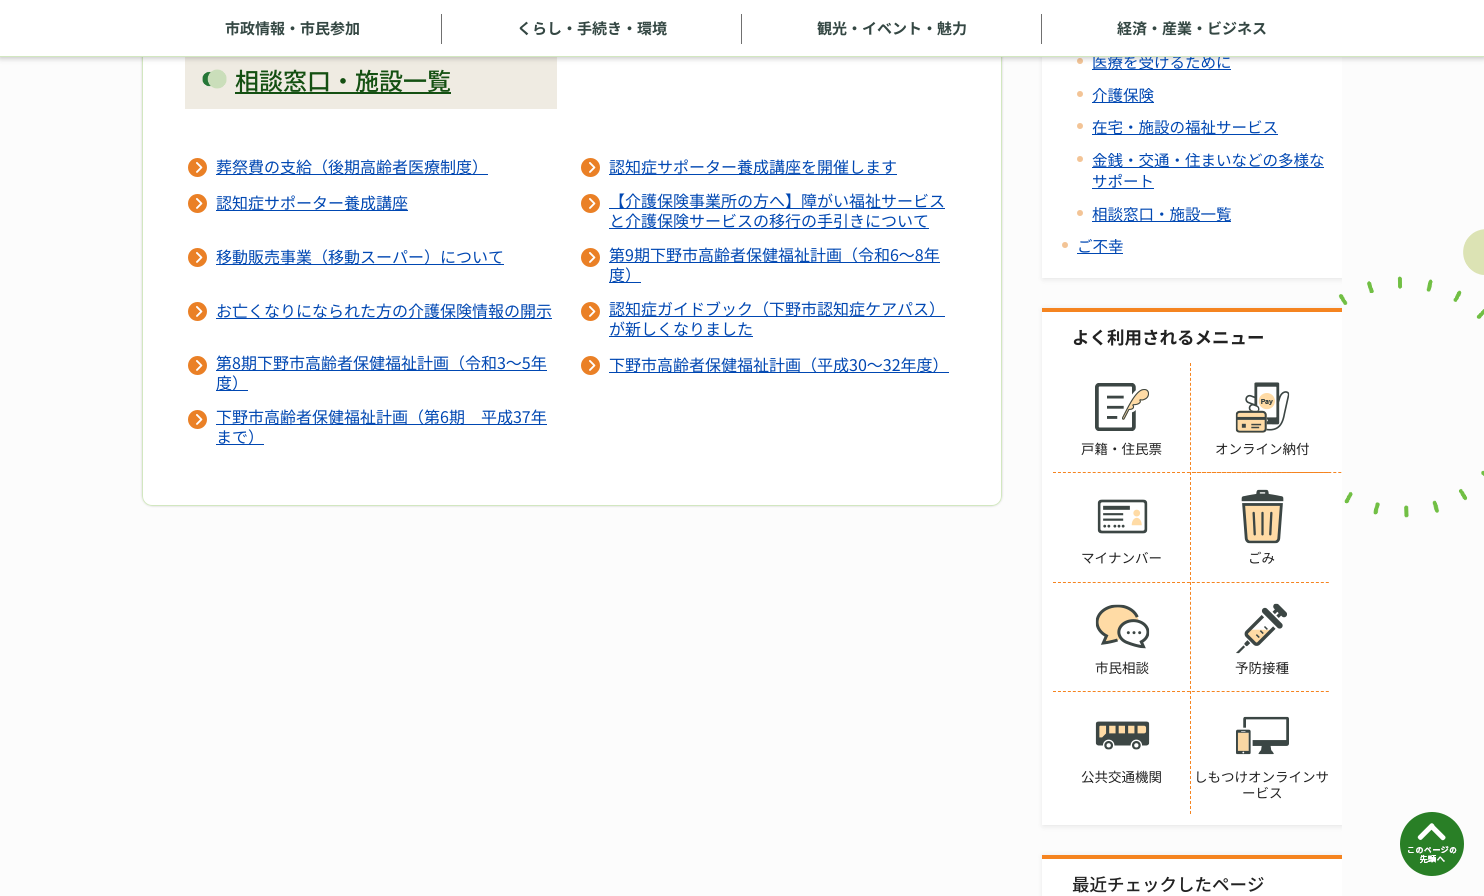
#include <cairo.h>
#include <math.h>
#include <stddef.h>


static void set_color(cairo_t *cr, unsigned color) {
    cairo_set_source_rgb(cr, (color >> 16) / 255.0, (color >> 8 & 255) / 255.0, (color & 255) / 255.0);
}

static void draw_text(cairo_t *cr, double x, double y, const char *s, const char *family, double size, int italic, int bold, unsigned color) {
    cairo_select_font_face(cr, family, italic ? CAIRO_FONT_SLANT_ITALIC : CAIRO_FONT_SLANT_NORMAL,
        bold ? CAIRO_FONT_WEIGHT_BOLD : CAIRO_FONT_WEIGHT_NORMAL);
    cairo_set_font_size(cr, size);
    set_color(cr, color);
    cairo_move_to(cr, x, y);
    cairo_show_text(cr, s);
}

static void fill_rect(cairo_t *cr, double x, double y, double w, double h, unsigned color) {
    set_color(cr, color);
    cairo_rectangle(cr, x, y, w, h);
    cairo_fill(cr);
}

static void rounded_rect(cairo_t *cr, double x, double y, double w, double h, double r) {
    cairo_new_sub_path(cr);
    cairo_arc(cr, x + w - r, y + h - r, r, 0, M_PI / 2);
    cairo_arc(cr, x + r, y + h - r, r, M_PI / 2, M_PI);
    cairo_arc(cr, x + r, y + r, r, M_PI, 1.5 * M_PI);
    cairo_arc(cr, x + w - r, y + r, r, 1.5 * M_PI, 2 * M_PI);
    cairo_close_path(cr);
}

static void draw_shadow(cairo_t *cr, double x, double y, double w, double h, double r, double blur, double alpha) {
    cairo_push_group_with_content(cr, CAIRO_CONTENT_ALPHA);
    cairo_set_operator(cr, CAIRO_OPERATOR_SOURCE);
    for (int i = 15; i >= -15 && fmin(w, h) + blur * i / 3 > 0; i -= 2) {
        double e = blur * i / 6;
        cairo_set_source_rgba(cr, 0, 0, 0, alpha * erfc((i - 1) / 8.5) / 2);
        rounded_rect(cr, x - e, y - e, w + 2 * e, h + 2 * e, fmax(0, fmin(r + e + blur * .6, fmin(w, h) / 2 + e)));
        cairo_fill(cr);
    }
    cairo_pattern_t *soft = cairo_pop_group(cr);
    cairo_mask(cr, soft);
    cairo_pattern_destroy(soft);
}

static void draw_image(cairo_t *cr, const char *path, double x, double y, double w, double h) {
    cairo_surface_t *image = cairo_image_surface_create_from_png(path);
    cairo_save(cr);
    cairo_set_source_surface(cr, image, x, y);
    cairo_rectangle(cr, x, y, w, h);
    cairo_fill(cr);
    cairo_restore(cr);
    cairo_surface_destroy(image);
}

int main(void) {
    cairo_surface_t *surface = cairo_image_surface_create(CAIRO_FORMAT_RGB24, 1484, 896);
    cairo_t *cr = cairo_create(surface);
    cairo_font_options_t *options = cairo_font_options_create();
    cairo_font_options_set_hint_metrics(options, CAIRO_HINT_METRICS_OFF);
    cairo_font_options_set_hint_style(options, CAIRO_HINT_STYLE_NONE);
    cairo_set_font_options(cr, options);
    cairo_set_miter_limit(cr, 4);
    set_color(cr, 0xFCFCFC);
    cairo_paint(cr);
    cairo_save(cr);
    cairo_set_fill_rule(cr, CAIRO_FILL_RULE_EVEN_ODD);
    cairo_new_path(cr);
    cairo_move_to(cr, 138, 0);
    cairo_line_to(cr, 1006, 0);
    cairo_line_to(cr, 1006, 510);
    cairo_line_to(cr, 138, 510);
    cairo_close_path(cr);
    cairo_move_to(cr, 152, -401);
    cairo_line_to(cr, 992, -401);
    cairo_curve_to(cr, 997.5, -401, 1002, -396.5, 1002, -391);
    cairo_line_to(cr, 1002, 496);
    cairo_curve_to(cr, 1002, 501.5, 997.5, 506, 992, 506);
    cairo_line_to(cr, 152, 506);
    cairo_curve_to(cr, 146.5, 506, 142, 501.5, 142, 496);
    cairo_line_to(cr, 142, -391);
    cairo_curve_to(cr, 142, -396.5, 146.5, -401, 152, -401);
    cairo_close_path(cr);
    cairo_clip(cr);
    set_color(cr, 0xCFCFCF);
    draw_shadow(cr, 142, -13, 860, 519, 10, 1, 1);
    cairo_restore(cr);
    set_color(cr, 0xFFFFFF);
    rounded_rect(cr, 142.5, -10.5, 859, 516, 9.5);
    cairo_fill_preserve(cr);
    set_color(cr, 0xD2E7C0);
    cairo_set_line_width(cr, 1);
    cairo_stroke(cr);
    fill_rect(cr, 185, 57, 372, 52, 0xEFEBE2);
    draw_image(cr, "assets/img11.png", 1338, 229, 146, 289);
    cairo_save(cr);
    cairo_rectangle(cr, 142, 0, 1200, 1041);
    cairo_clip(cr);
    set_color(cr, 0x000000);
    draw_shadow(cr, 1043, -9, 300, 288, 0, 3, 0.1);
    cairo_restore(cr);
    fill_rect(cr, 1042, 57, 300, 221, 0xFFFFFF);
    set_color(cr, 0xF3C496);
    cairo_arc(cr, 1080, 61, 3, 0, 2 * M_PI);
    cairo_fill(cr);
    set_color(cr, 0x202124);
    draw_shadow(cr, 0, 1, 1484, 57, 0, 3, 0.28);
    fill_rect(cr, 1092, 69, 139, 1, 0x0047B2);
    draw_text(cr, 1092, 68, "医療を受けるために", "Noto Sans JP", 15.5, 0, 0, 0x0047B2);
    fill_rect(cr, 0, 0, 1484, 56, 0xFFFFFF);
    fill_rect(cr, 0, 56, 1484, 1, 0xD2E7C0);
    draw_text(cr, 225, 34, "市政情報・市民参加", "Noto Sans JP", 15, 0, 1, 0x344743);
    fill_rect(cr, 441, 14, 1, 30, 0x707070);
    draw_text(cr, 517, 34, "くらし・手続き・環境", "Noto Sans JP", 15, 0, 1, 0x344743);
    fill_rect(cr, 741, 14, 1, 30, 0x707070);
    draw_text(cr, 817, 34, "観光・イベント・魅力", "Noto Sans JP", 15, 0, 1, 0x344743);
    fill_rect(cr, 1041, 14, 1, 30, 0x707070);
    draw_text(cr, 1117, 34, "経済・産業・ビジネス", "Noto Sans JP", 15, 0, 1, 0x344743);
    draw_image(cr, "assets/img1.png", 202, 69, 25, 20);
    fill_rect(cr, 235, 92, 216, 2, 0x145012);
    draw_text(cr, 235, 90, "相談窓口・施設一覧", "Noto Sans JP Medium", 24, 0, 0, 0x145012);
    draw_image(cr, "assets/img2.png", 188, 158, 19, 19);
    fill_rect(cr, 216, 174, 272, 1, 0x0047B2);
    draw_text(cr, 216, 173, "葬祭費の支給（後期高齢者医療制度）", "Noto Sans JP", 16, 0, 0, 0x0047B2);
    draw_image(cr, "assets/img2.png", 581, 158, 19, 19);
    fill_rect(cr, 609, 174, 288, 1, 0x0047B2);
    draw_text(cr, 609, 173, "認知症サポーター養成講座を開催します", "Noto Sans JP", 16, 0, 0, 0x0047B2);
    draw_image(cr, "assets/img2.png", 188, 194, 19, 19);
    fill_rect(cr, 216, 210, 192, 1, 0x0047B2);
    draw_text(cr, 216, 209, "認知症サポーター養成講座", "Noto Sans JP", 16, 0, 0, 0x0047B2);
    draw_image(cr, "assets/img2.png", 581, 194, 19, 19);
    fill_rect(cr, 609, 208, 336, 1, 0x0047B2);
    draw_text(cr, 609, 207, "【介護保険事業所の方へ】障がい福祉サービス", "Noto Sans JP", 16, 0, 0, 0x0047B2);
    fill_rect(cr, 609, 228, 320, 1, 0x0047B2);
    draw_text(cr, 609, 227, "と介護保険サービスの移行の手引きについて", "Noto Sans JP", 16, 0, 0, 0x0047B2);
    draw_image(cr, "assets/img2.png", 188, 248, 19, 19);
    fill_rect(cr, 216, 264, 288, 1, 0x0047B2);
    draw_text(cr, 216, 263, "移動販売事業（移動スーパー）について", "Noto Sans JP", 16, 0, 0, 0x0047B2);
    draw_image(cr, "assets/img2.png", 581, 248, 19, 19);
    fill_rect(cr, 609, 262, 331, 1, 0x0047B2);
    draw_text(cr, 609, 261, "第9期下野市高齢者保健福祉計画（令和6～8年", "Noto Sans JP", 16, 0, 0, 0x0047B2);
    fill_rect(cr, 609, 282, 32, 1, 0x0047B2);
    draw_text(cr, 609, 281, "度）", "Noto Sans JP", 16, 0, 0, 0x0047B2);
    draw_image(cr, "assets/img2.png", 188, 302, 19, 19);
    fill_rect(cr, 216, 318, 336, 1, 0x0047B2);
    draw_text(cr, 216, 317, "お亡くなりになられた方の介護保険情報の開示", "Noto Sans JP", 16, 0, 0, 0x0047B2);
    draw_image(cr, "assets/img2.png", 581, 302, 19, 19);
    fill_rect(cr, 609, 316, 336, 1, 0x0047B2);
    draw_text(cr, 609, 315, "認知症ガイドブック（下野市認知症ケアパス）", "Noto Sans JP", 16, 0, 0, 0x0047B2);
    fill_rect(cr, 609, 336, 144, 1, 0x0047B2);
    draw_text(cr, 609, 335, "が新しくなりました", "Noto Sans JP", 16, 0, 0, 0x0047B2);
    draw_image(cr, "assets/img2.png", 188, 356, 19, 19);
    fill_rect(cr, 216, 370, 331, 1, 0x0047B2);
    draw_text(cr, 216, 369, "第8期下野市高齢者保健福祉計画（令和3～5年", "Noto Sans JP", 16, 0, 0, 0x0047B2);
    fill_rect(cr, 216, 390, 32, 1, 0x0047B2);
    draw_text(cr, 216, 389, "度）", "Noto Sans JP", 16, 0, 0, 0x0047B2);
    draw_image(cr, "assets/img2.png", 581, 356, 19, 19);
    fill_rect(cr, 609, 372, 340, 1, 0x0047B2);
    draw_text(cr, 609, 371, "下野市高齢者保健福祉計画（平成30～32年度）", "Noto Sans JP", 16, 0, 0, 0x0047B2);
    draw_image(cr, "assets/img2.png", 188, 410, 19, 19);
    fill_rect(cr, 216, 424, 331, 1, 0x0047B2);
    draw_text(cr, 216, 423, "下野市高齢者保健福祉計画（第6期　平成37年", "Noto Sans JP", 16, 0, 0, 0x0047B2);
    fill_rect(cr, 216, 444, 48, 1, 0x0047B2);
    draw_text(cr, 216, 443, "まで）", "Noto Sans JP", 16, 0, 0, 0x0047B2);
    set_color(cr, 0xF3C496);
    cairo_new_path(cr);
    cairo_arc(cr, 1080, 94, 3, 0, 2 * M_PI);
    cairo_fill(cr);
    fill_rect(cr, 1092, 102, 62, 1, 0x0047B2);
    draw_text(cr, 1092, 101, "介護保険", "Noto Sans JP", 15.5, 0, 0, 0x0047B2);
    set_color(cr, 0xF3C496);
    cairo_new_path(cr);
    cairo_arc(cr, 1080, 126, 3, 0, 2 * M_PI);
    cairo_fill(cr);
    fill_rect(cr, 1092, 134, 186, 1, 0x0047B2);
    draw_text(cr, 1092, 133, "在宅・施設の福祉サービス", "Noto Sans JP", 15.5, 0, 0, 0x0047B2);
    set_color(cr, 0xF3C496);
    cairo_new_path(cr);
    cairo_arc(cr, 1080, 159, 3, 0, 2 * M_PI);
    cairo_fill(cr);
    fill_rect(cr, 1092, 167, 232, 1, 0x0047B2);
    draw_text(cr, 1092, 166, "金銭・交通・住まいなどの多様な", "Noto Sans JP", 15.5, 0, 0, 0x0047B2);
    draw_text(cr, 1092, 187, "サポート", "Noto Sans JP", 15.5, 0, 0, 0x0047B2);
    fill_rect(cr, 1092, 188, 62, 1, 0x0047B2);
    set_color(cr, 0xF3C496);
    cairo_new_path(cr);
    cairo_arc(cr, 1080, 213, 3, 0, 2 * M_PI);
    cairo_fill(cr);
    fill_rect(cr, 1092, 221, 139, 1, 0x0047B2);
    draw_text(cr, 1092, 220, "相談窓口・施設一覧", "Noto Sans JP", 15.5, 0, 0, 0x0047B2);
    set_color(cr, 0xF3C496);
    cairo_new_path(cr);
    cairo_arc(cr, 1065, 245, 3, 0, 2 * M_PI);
    cairo_fill(cr);
    fill_rect(cr, 1077, 253, 46, 1, 0x0047B2);
    draw_text(cr, 1077, 252, "ご不幸", "Noto Sans JP", 15.5, 0, 0, 0x0047B2);
    cairo_save(cr);
    cairo_rectangle(cr, 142, 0, 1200, 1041);
    cairo_clip(cr);
    set_color(cr, 0x000000);
    draw_shadow(cr, 1043, 309, 300, 517, 0, 3, 0.1);
    cairo_restore(cr);
    fill_rect(cr, 1042, 312, 300, 513, 0xFFFFFF);
    fill_rect(cr, 1042, 308, 300, 4, 0xF58420);
    draw_text(cr, 1072, 344, "よく利用されるメニュー", "Noto Sans JP", 17.5, 0, 1, 0x222222);
    draw_image(cr, "assets/img3.png", 1095, 383, 54, 48);
    draw_text(cr, 1081, 454, "戸籍・住民票", "Noto Sans JP", 13.5, 0, 0, 0x222222);
    cairo_new_path(cr);
    cairo_move_to(cr, 1190.5, 363);
    cairo_line_to(cr, 1190.5, 470);
    set_color(cr, 0xF58420);
    cairo_set_dash(cr, (double[]){3, 1.95}, 2, 0);
    cairo_stroke(cr);
    draw_image(cr, "assets/img4.png", 1235, 382, 55, 51);
    draw_text(cr, 1215, 454, "オンライン納付", "Noto Sans JP", 13.5, 0, 0, 0x222222);
    cairo_new_path(cr);
    cairo_move_to(cr, 1190.5, 472);
    cairo_line_to(cr, 1190.5, 580);
    set_color(cr, 0xF58420);
    cairo_set_dash(cr, (double[]){3, 2}, 2, 0);
    cairo_stroke(cr);
    cairo_new_path(cr);
    cairo_move_to(cr, 1053, 472.5);
    cairo_line_to(cr, 1329, 472.5);
    cairo_set_dash(cr, (double[]){3, 1.96}, 2, 0);
    cairo_stroke(cr);
    draw_image(cr, "assets/img5.png", 1097, 499, 51, 35);
    draw_text(cr, 1081, 563, "マイナンバー", "Noto Sans JP", 13.5, 0, 0, 0x222222);
    cairo_save(cr);
    cairo_rectangle(cr, 142, 0, 1200, 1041);
    cairo_clip(cr);
    cairo_new_path(cr);
    cairo_move_to(cr, 1193, 472.5);
    cairo_line_to(cr, 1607, 472.5);
    set_color(cr, 0xF58420);
    cairo_set_dash(cr, (double[]){3, 2.01}, 2, 0);
    cairo_stroke(cr);
    cairo_restore(cr);
    draw_image(cr, "assets/img6.png", 1241, 489, 43, 55);
    draw_text(cr, 1248, 563, "ごみ", "Noto Sans JP", 13.5, 0, 0, 0x222222);
    cairo_new_path(cr);
    cairo_move_to(cr, 1190.5, 582);
    cairo_line_to(cr, 1190.5, 689);
    set_color(cr, 0xF58420);
    cairo_set_dash(cr, (double[]){3, 1.95}, 2, 0);
    cairo_stroke(cr);
    cairo_new_path(cr);
    cairo_move_to(cr, 1053, 582.5);
    cairo_line_to(cr, 1329, 582.5);
    cairo_set_dash(cr, (double[]){3, 1.96}, 2, 0);
    cairo_stroke(cr);
    draw_image(cr, "assets/img7.png", 1095, 604, 55, 45);
    draw_text(cr, 1095, 673, "市民相談", "Noto Sans JP", 13.5, 0, 0, 0x222222);
    draw_image(cr, "assets/img8.png", 1236, 603, 51, 51);
    draw_text(cr, 1235, 673, "予防接種", "Noto Sans JP", 13.5, 0, 0, 0x222222);
    cairo_new_path(cr);
    cairo_move_to(cr, 1190.5, 691);
    cairo_line_to(cr, 1190.5, 814);
    set_color(cr, 0xF58420);
    cairo_set_dash(cr, (double[]){3, 2}, 2, 0);
    cairo_stroke(cr);
    cairo_new_path(cr);
    cairo_move_to(cr, 1053, 691.5);
    cairo_line_to(cr, 1329, 691.5);
    cairo_set_dash(cr, (double[]){3, 1.96}, 2, 0);
    cairo_stroke(cr);
    draw_image(cr, "assets/img9.png", 1095, 721, 55, 29);
    draw_text(cr, 1081, 782, "公共交通機関", "Noto Sans JP", 13.5, 0, 0, 0x222222);
    draw_image(cr, "assets/img10.png", 1236, 716, 53, 39);
    draw_text(cr, 1194, 782, "しもつけオンラインサ", "Noto Sans JP", 13.5, 0, 0, 0x222222);
    draw_text(cr, 1242, 798, "ービス", "Noto Sans JP", 13.5, 0, 0, 0x222222);
    cairo_save(cr);
    cairo_rectangle(cr, 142, 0, 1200, 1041);
    cairo_clip(cr);
    set_color(cr, 0x000000);
    draw_shadow(cr, 1043, 856, 300, 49, 0, 3, 0.1);
    cairo_restore(cr);
    fill_rect(cr, 1042, 859, 300, 37, 0xFFFFFF);
    fill_rect(cr, 1042, 855, 300, 4, 0xF58420);
    draw_text(cr, 1072, 891, "最近チェックしたページ", "Noto Sans JP Medium", 17.5, 0, 0, 0x222222);
    draw_image(cr, "assets/img12.png", 1400, 812, 64, 64);
    cairo_surface_write_to_png(surface, "output.png");
    cairo_font_options_destroy(options);
    cairo_destroy(cr);
    cairo_surface_destroy(surface);
    return 0;
}
